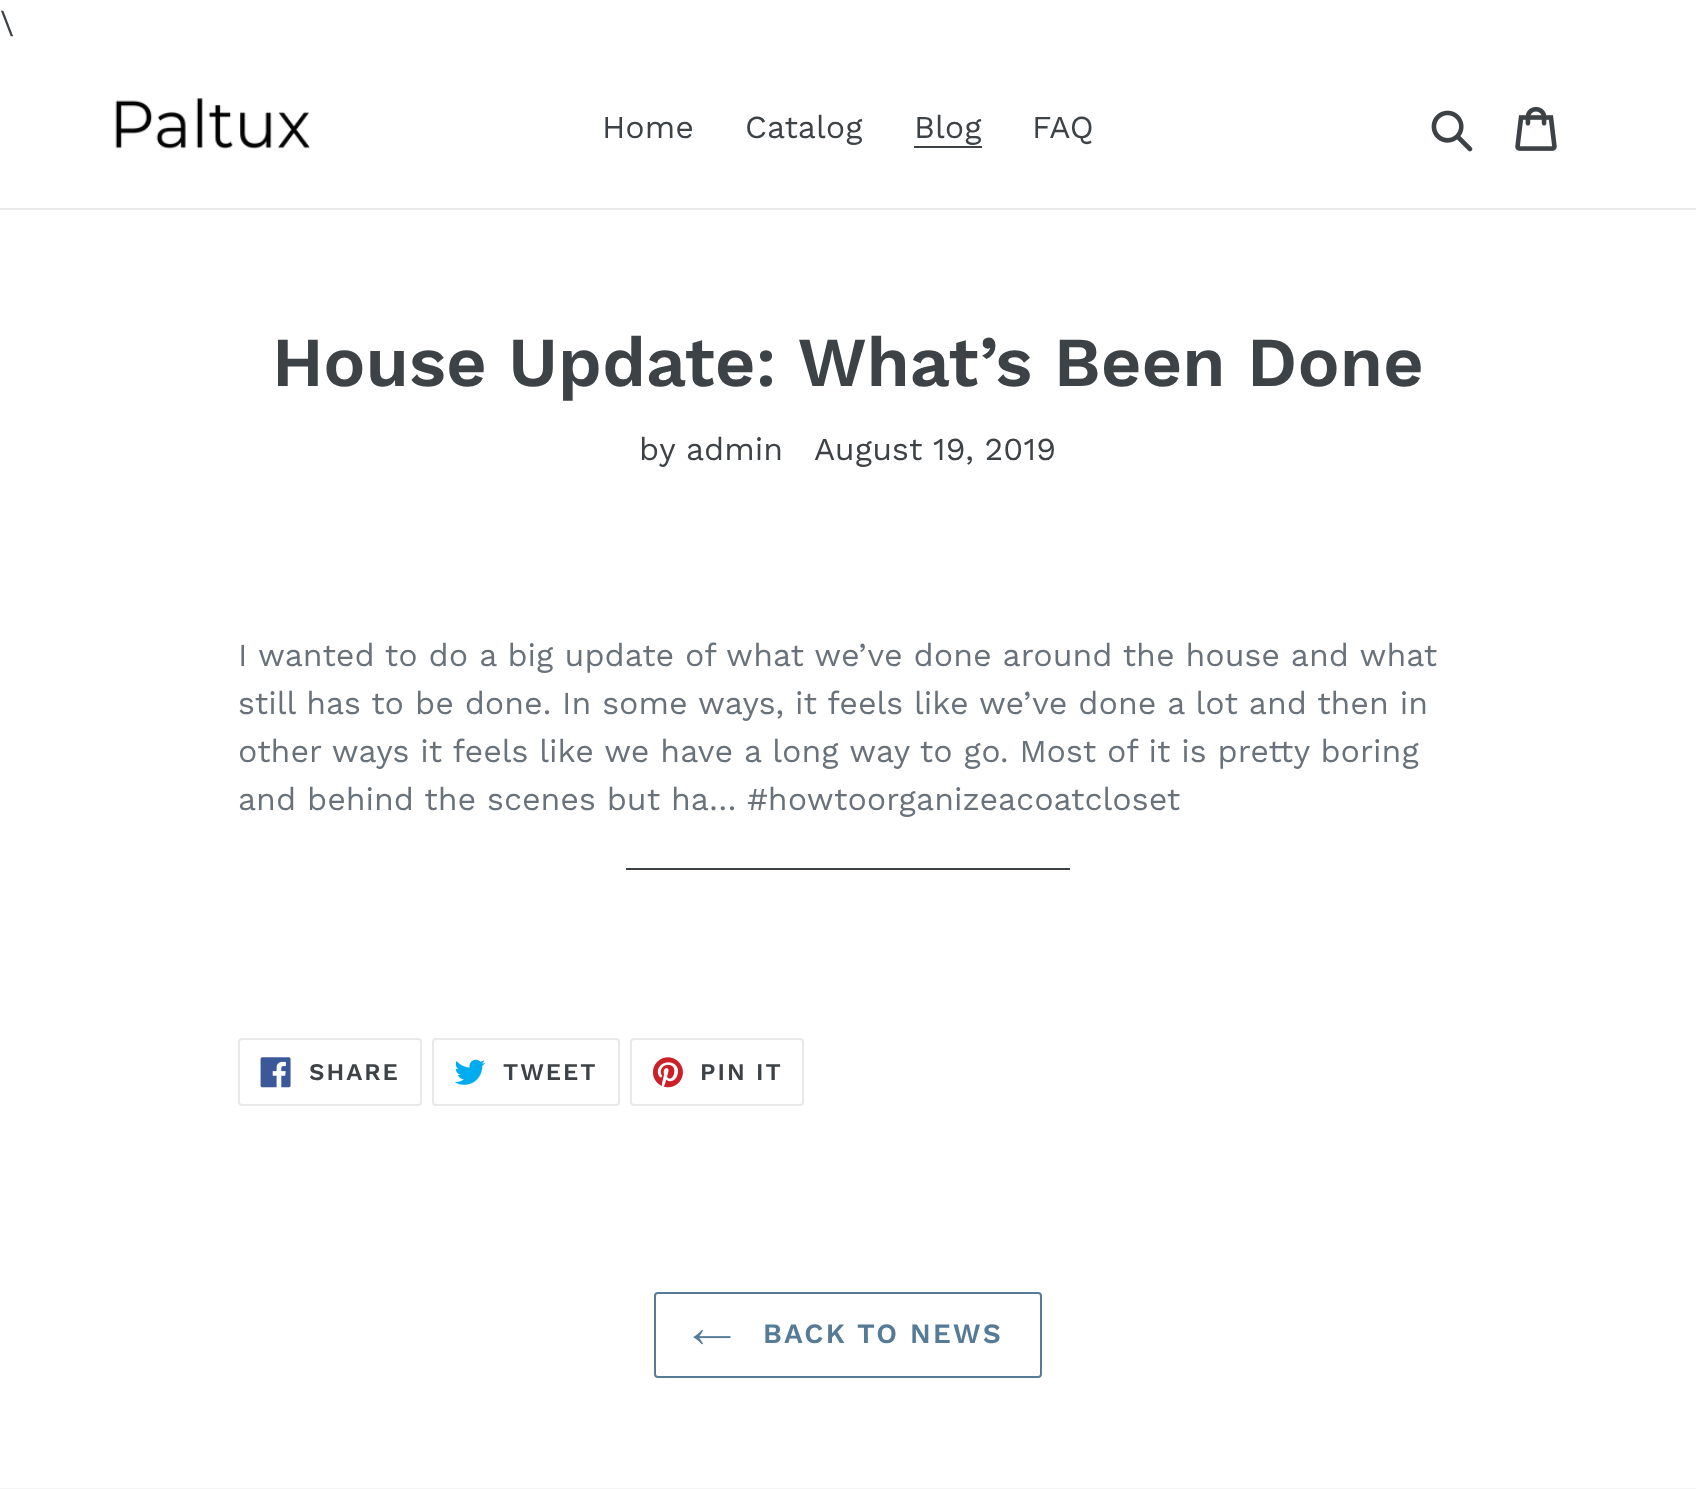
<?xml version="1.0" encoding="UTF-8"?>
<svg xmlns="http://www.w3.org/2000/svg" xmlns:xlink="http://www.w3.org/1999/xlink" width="1696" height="1489">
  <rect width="100%" height="100%" fill="#ffffff" />
  <rect y="208" width="1696" height="2" fill="#e8e9eb" />
  <image x="115" y="98" width="195" height="51" xlink:href="image1.png" />
  <rect x="914" y="146" width="68" height="2" fill="#3d4246" />
  <image x="1431" y="110" width="42" height="42" xlink:href="image2.png" />
  <image x="1515" y="106" width="42" height="45" xlink:href="image3.png" />
  <rect x="626" y="868" width="444" height="2" fill="#3d4246" />
  <rect x="239" y="1039" width="182" height="66" rx="3" fill="none" stroke="#e8e9eb" stroke-width="2" />
  <image x="260" y="1057" width="31" height="31" xlink:href="image4.png" />
  <rect x="433" y="1039" width="186" height="66" rx="3" fill="none" stroke="#e8e9eb" stroke-width="2" />
  <image x="454" y="1059" width="32" height="26" xlink:href="image5.png" />
  <rect x="631" y="1039" width="172" height="66" rx="3" fill="none" stroke="#e8e9eb" stroke-width="2" />
  <image x="652" y="1057" width="31" height="31" xlink:href="image6.png" />
  <rect x="655" y="1293" width="386" height="84" rx="3" fill="none" stroke="#557b97" stroke-width="2" />
  <image x="693" y="1330" width="38" height="15" xlink:href="image7.png" />
  <rect y="1488" width="1696" height="1" fill="#f5f5f5" />
  <text x="0" y="34" style="font-family: Work Sans; font-size: 32px; fill: #3d4246">\</text>
  <text x="602" y="138" style="font-family: Work Sans; font-size: 32px; fill: #3d4246">Home</text>
  <text x="745" y="138" style="font-family: Work Sans; font-size: 32px; fill: #3d4246">Catalog</text>
  <text x="914" y="138" style="font-family: Work Sans; font-size: 32px; fill: #3d4246">Blog</text>
  <text x="1032" y="138" style="font-family: Work Sans; font-size: 32px; fill: #3d4246">FAQ</text>
  <text x="272" y="386" style="font-family: Work Sans; font-size: 70px; font-weight: 600; fill: #3d4246">House Update: What’s Been Done</text>
  <text x="639" y="460" style="font-family: Work Sans; font-size: 32px; fill: #3d4246">by admin</text>
  <text x="814" y="460" style="font-family: Work Sans; font-size: 32px; fill: #3d4246">August 19, 2019</text>
  <text x="238" y="666" style="font-family: Work Sans; font-size: 32px; fill: #69727b">I wanted to do a big update of what we’ve done around the house and what</text>
  <text x="238" y="714" style="font-family: Work Sans; font-size: 32px; fill: #69727b">still has to be done. In some ways, it feels like we’ve done a lot and then in</text>
  <text x="238" y="762" style="font-family: Work Sans; font-size: 32px; fill: #69727b">other ways it feels like we have a long way to go. Most of it is pretty boring</text>
  <text x="238" y="810" style="font-family: Work Sans; font-size: 32px; fill: #69727b">and behind the scenes but ha… #howtoorganizeacoatcloset</text>
  <text x="309" y="1080" style="font-family: Work Sans; font-size: 24px; font-weight: 600; letter-spacing: 2px; fill: #3d4246">SHARE</text>
  <text x="503" y="1080" style="font-family: Work Sans; font-size: 24px; font-weight: 600; letter-spacing: 2px; fill: #3d4246">TWEET</text>
  <text x="700" y="1080" style="font-family: Work Sans; font-size: 24px; font-weight: 600; letter-spacing: 2px; fill: #3d4246">PIN IT</text>
  <text x="763" y="1343" style="font-family: Work Sans; font-size: 28px; font-weight: 600; letter-spacing: 2.25px; fill: #557b97">BACK TO NEWS</text>
</svg>
